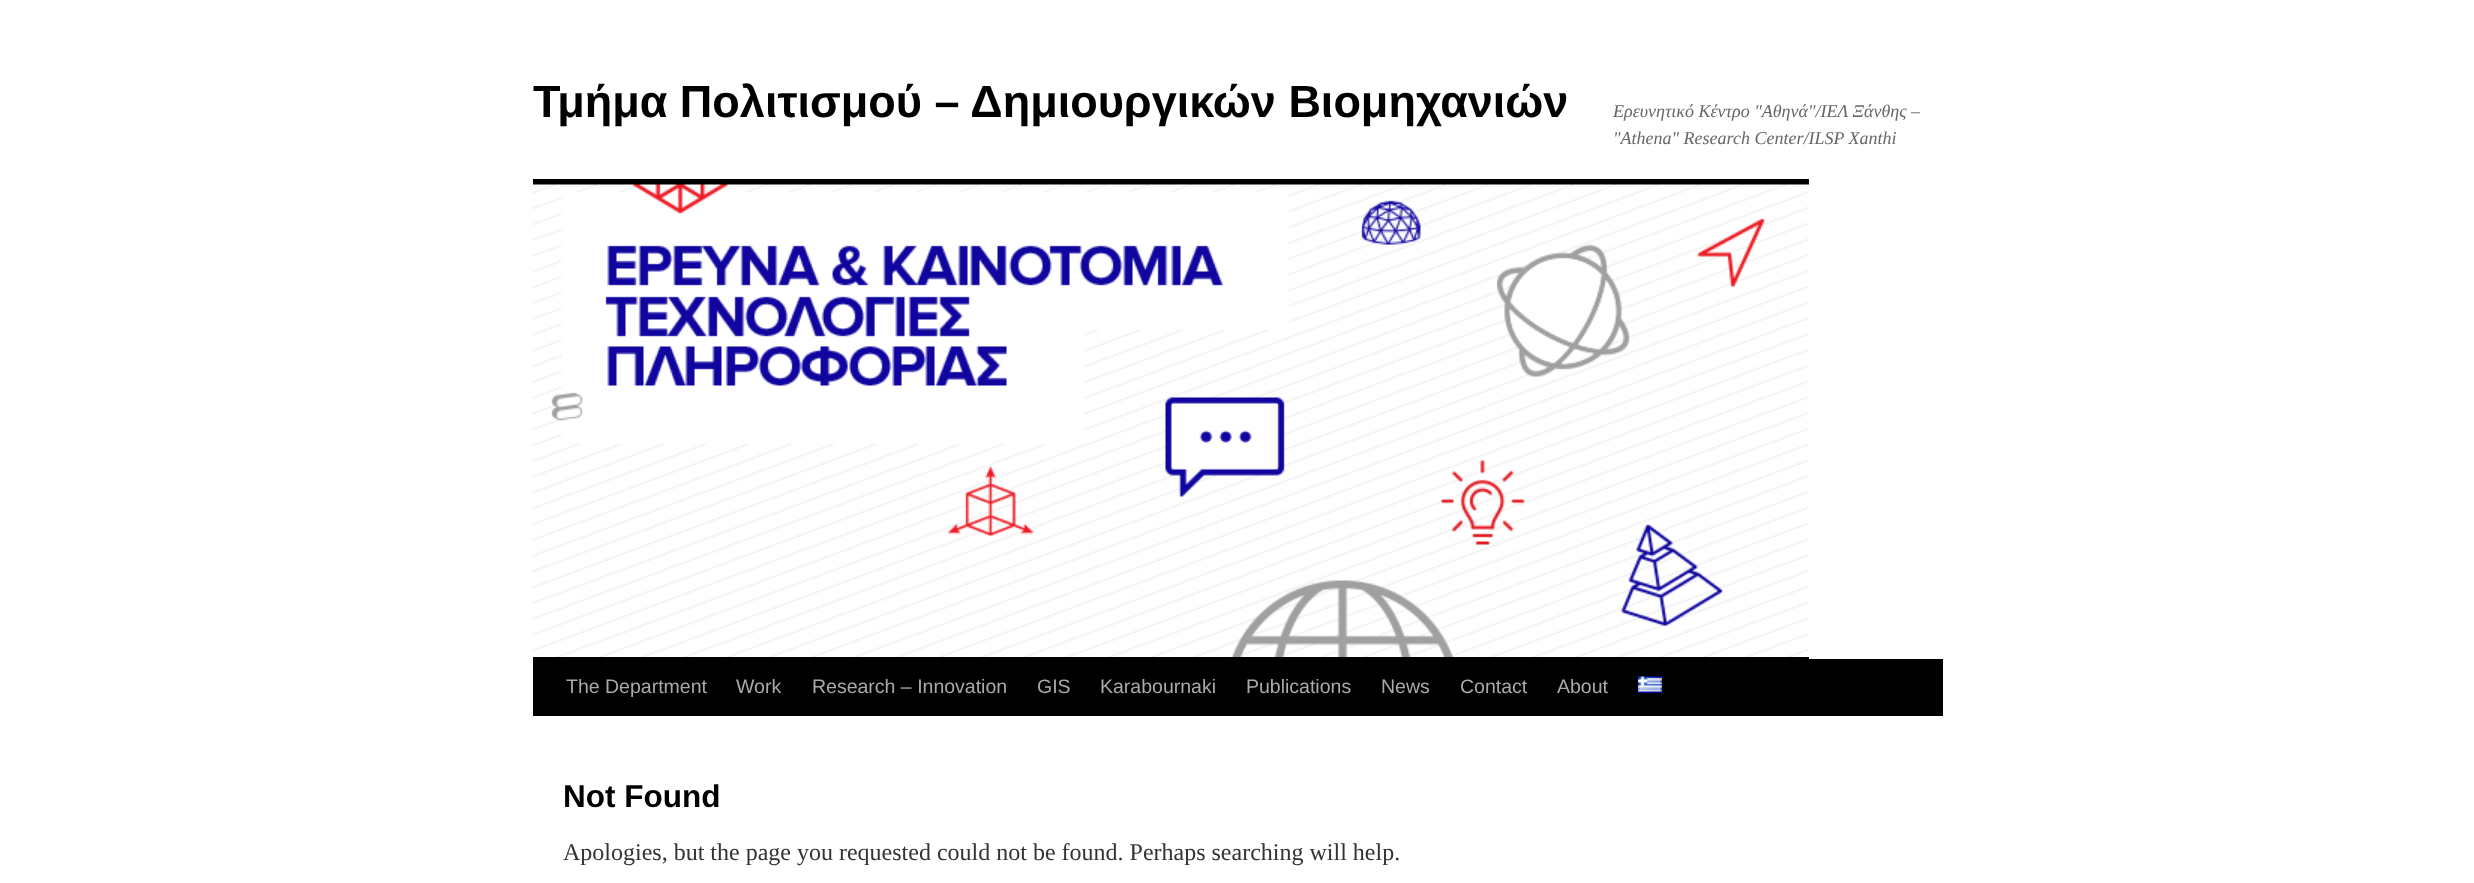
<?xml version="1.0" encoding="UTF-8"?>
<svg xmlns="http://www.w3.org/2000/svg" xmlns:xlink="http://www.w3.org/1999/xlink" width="2474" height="883">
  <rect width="100%" height="100%" fill="#ffffff" />
  <rect x="533" y="179" width="1276" height="6" fill="#000000" />
  <rect x="533" y="657" width="1276" height="2" fill="#000000" />
  <image x="532" y="184" width="1277" height="473" xlink:href="image1.png" />
  <rect x="533" y="659" width="1410" height="57" fill="#000000" />
  <image x="1638" y="676" width="24" height="17" xlink:href="image2.png" />
  <text x="533" y="117" style="font-family: Liberation Sans; font-size: 45px; font-weight: bold; fill: #000000">Τμήμα Πολιτισμού – Δημιουργικών Βιομηχανιών</text>
  <text x="1613" y="117" style="font-family: Liberation Serif; font-size: 18px; font-style: italic; fill: #666666">Ερευνητικό Κέντρο "Αθηνά"/ΙΕΛ Ξάνθης –</text>
  <text x="1613" y="144" style="font-family: Liberation Serif; font-size: 18px; font-style: italic; fill: #666666">"Athena" Research Center/ILSP Xanthi</text>
  <text x="566" y="693" style="font-family: Liberation Sans; font-size: 19.5px; fill: #aaaaaa">The Department</text>
  <text x="736" y="693" style="font-family: Liberation Sans; font-size: 19.5px; fill: #aaaaaa">Work</text>
  <text x="812" y="693" style="font-family: Liberation Sans; font-size: 19.5px; fill: #aaaaaa">Research – Innovation</text>
  <text x="1037" y="693" style="font-family: Liberation Sans; font-size: 19.5px; fill: #aaaaaa">GIS</text>
  <text x="1100" y="693" style="font-family: Liberation Sans; font-size: 19.5px; fill: #aaaaaa">Karabournaki</text>
  <text x="1246" y="693" style="font-family: Liberation Sans; font-size: 19.5px; fill: #aaaaaa">Publications</text>
  <text x="1381" y="693" style="font-family: Liberation Sans; font-size: 19.5px; fill: #aaaaaa">News</text>
  <text x="1460" y="693" style="font-family: Liberation Sans; font-size: 19.5px; fill: #aaaaaa">Contact</text>
  <text x="1557" y="693" style="font-family: Liberation Sans; font-size: 19.5px; fill: #aaaaaa">About</text>
  <text x="563" y="807" style="font-family: Liberation Sans; font-size: 31.5px; font-weight: bold; fill: #000000">Not Found</text>
  <text x="563" y="860" style="font-family: Liberation Serif; font-size: 24px; fill: #333333">Apologies, but the page you requested could not be found. Perhaps searching will help.</text>
</svg>
